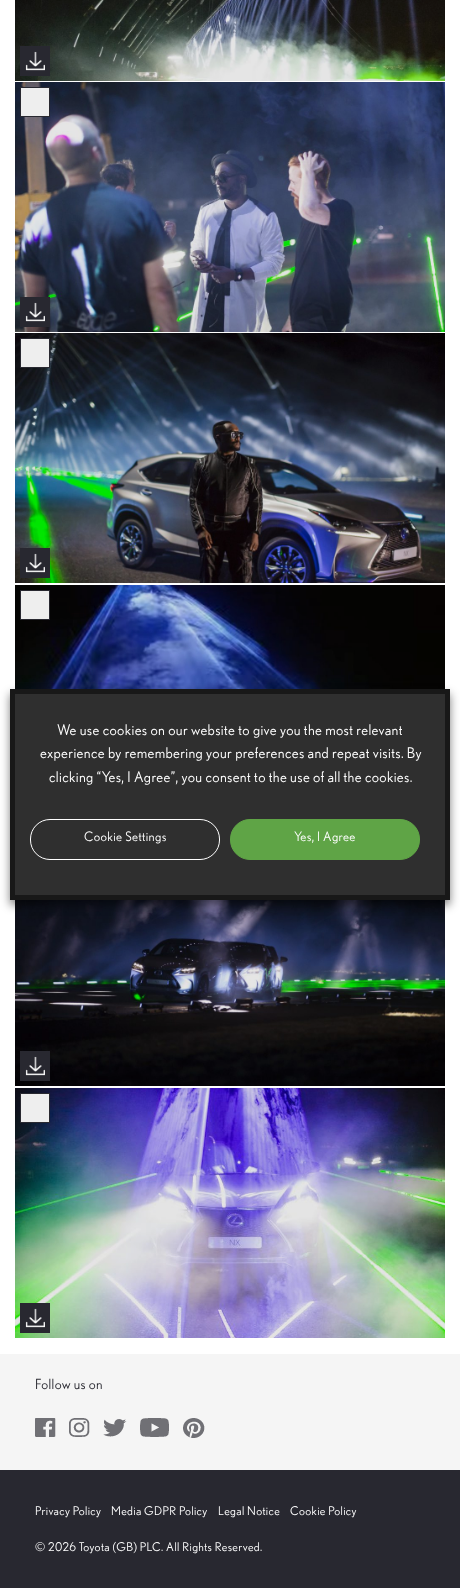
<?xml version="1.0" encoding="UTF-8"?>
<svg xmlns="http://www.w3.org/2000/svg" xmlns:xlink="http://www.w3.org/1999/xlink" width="460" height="1588">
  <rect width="100%" height="100%" fill="#ffffff" />
  <image x="15" y="585" width="430" height="104" xlink:href="image5.png" />
  <image x="15" y="900" width="430" height="186" xlink:href="image6.png" />
  <rect x="10" y="694" width="440" height="211" fill="#000000" fill-opacity="0.5" filter="blur(5px)" />
  <rect x="12.5" y="691.5" width="435" height="206" fill="#2f2f2f" stroke="#181818" stroke-width="5" />
  <rect x="30.5" y="819.5" width="189" height="40" rx="19.5" fill="none" stroke="#ffffff" />
  <rect x="230.5" y="819.5" width="189" height="40" rx="19.5" fill="#5fa446" stroke="#5fa446" />
  <image x="15" y="0" width="430" height="81" xlink:href="image1.png" />
  <rect x="20" y="46" width="30" height="30" fill="#282830" />
  <image x="25" y="51" width="20" height="20" xlink:href="image2.png" />
  <image x="15" y="82" width="430" height="250" xlink:href="image3.png" />
  <rect x="20.5" y="87.5" width="29" height="29" fill="#eeeeee" stroke="#282830" />
  <rect x="20" y="297" width="30" height="30" fill="#282830" />
  <image x="25" y="302" width="20" height="20" xlink:href="image2.png" />
  <image x="15" y="333" width="430" height="250" xlink:href="image4.png" />
  <rect x="20.5" y="338.5" width="29" height="29" fill="#eeeeee" stroke="#282830" />
  <rect x="20" y="548" width="30" height="30" fill="#282830" />
  <image x="25" y="553" width="20" height="20" xlink:href="image2.png" />
  <rect x="20.5" y="590.5" width="29" height="29" fill="#eeeeee" stroke="#282830" />
  <rect x="20" y="1051" width="30" height="30" fill="#282830" />
  <image x="25" y="1056" width="20" height="20" xlink:href="image2.png" />
  <image x="15" y="1088" width="430" height="250" xlink:href="image7.png" />
  <rect x="20.5" y="1093.5" width="29" height="29" fill="#eeeeee" stroke="#282830" />
  <rect x="20" y="1303" width="30" height="30" fill="#282830" />
  <image x="25" y="1308" width="20" height="20" xlink:href="image2.png" />
  <rect y="1354" width="460" height="116" fill="#f5f5f5" />
  <image x="35" y="1418" width="21" height="19" xlink:href="image8.png" />
  <image x="69" y="1418" width="21" height="19" xlink:href="image9.png" />
  <image x="103" y="1419" width="24" height="18" xlink:href="image10.png" />
  <image x="140" y="1418" width="29" height="19" xlink:href="image11.png" />
  <image x="183" y="1418" width="22" height="20" xlink:href="image12.png" />
  <rect y="1470" width="460" height="118" fill="#282830" />
  <text x="57" y="735" style="font-family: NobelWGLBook; font-size: 14.7px; letter-spacing: 0.35px; fill: #ffffff">We use cookies on our website to give you the most relevant</text>
  <text x="40" y="758" style="font-family: NobelWGLBook; font-size: 14.7px; letter-spacing: 0.35px; fill: #ffffff">experience by remembering your preferences and repeat visits. By</text>
  <text x="49" y="782" style="font-family: NobelWGLBook; font-size: 14.7px; letter-spacing: 0.35px; fill: #ffffff">clicking “Yes, I Agree”, you consent to the use of all the cookies.</text>
  <text x="84" y="841" style="font-family: NobelWGLBook; font-size: 13px; letter-spacing: 0.35px; fill: #ffffff">Cookie Settings</text>
  <text x="294" y="841" style="font-family: NobelWGLBook; font-size: 13px; letter-spacing: 0.35px; fill: #ffffff">Yes, I Agree</text>
  <text x="35" y="1389" style="font-family: NobelWGLBook; font-size: 14px; letter-spacing: 0.35px; fill: #282830">Follow us on</text>
  <text x="35" y="1515" style="font-family: NobelWGLBook; font-size: 12px; letter-spacing: 0.35px; fill: #ffffff">Privacy Policy</text>
  <text x="111" y="1515" style="font-family: NobelWGLBook; font-size: 12px; letter-spacing: 0.35px; fill: #ffffff">Media GDPR Policy</text>
  <text x="218" y="1515" style="font-family: NobelWGLBook; font-size: 12px; letter-spacing: 0.35px; fill: #ffffff">Legal Notice</text>
  <text x="290" y="1515" style="font-family: NobelWGLBook; font-size: 12px; letter-spacing: 0.35px; fill: #ffffff">Cookie Policy</text>
  <text x="35" y="1551" style="font-family: NobelWGLBook; font-size: 12px; letter-spacing: 0.35px; fill: #ffffff">© 2026 Toyota (GB) PLC. All Rights Reserved.</text>
</svg>
